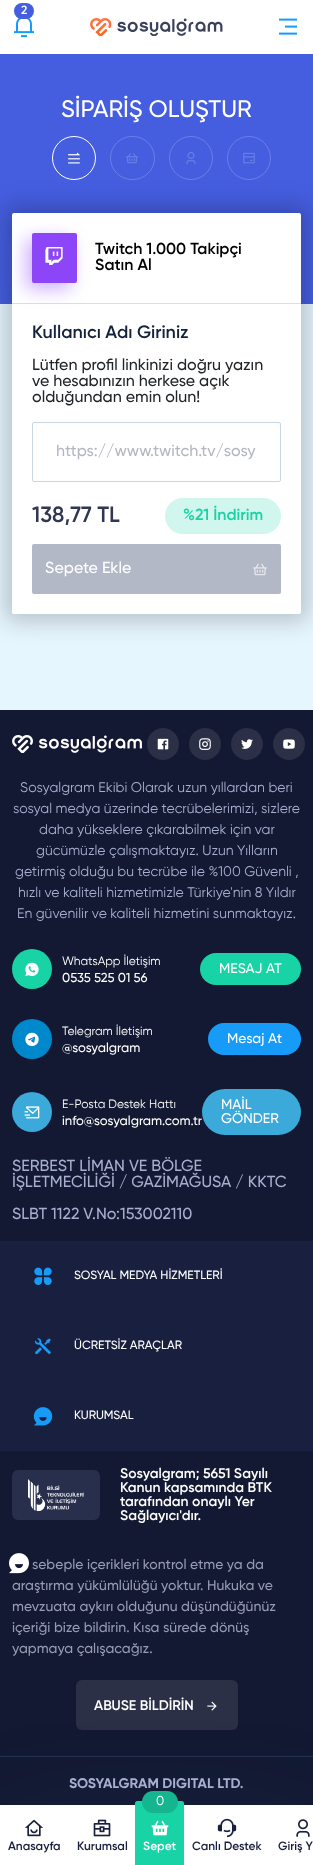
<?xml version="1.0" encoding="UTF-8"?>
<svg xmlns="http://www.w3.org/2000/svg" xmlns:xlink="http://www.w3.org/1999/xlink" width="313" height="1865">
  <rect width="100%" height="100%" fill="#e6f6ff" />
  <rect width="313" height="54" fill="#ffffff" />
  <image x="14" y="18" width="20" height="20" xlink:href="image1.png" />
  <rect x="14" y="3" width="20" height="16" rx="8" fill="#455ee0" />
  <image x="90" y="18" width="133" height="18" xlink:href="image2.png" />
  <image x="279" y="18" width="18" height="17" xlink:href="image3.png" />
  <rect y="54" width="313" height="250" fill="#455ee0" />
  <circle cx="74" cy="158" r="21.5" fill="none" stroke="#ffffff" />
  <image x="68" y="152" width="12" height="12" xlink:href="image4.png" />
  <rect x="110.5" y="136.5" width="44" height="43" rx="21.5" fill="none" stroke="#6a7ee6" />
  <image x="126" y="153" width="12" height="11" xlink:href="image5.png" />
  <circle cx="191" cy="158" r="21.5" fill="none" stroke="#6a7ee6" />
  <image x="186" y="152" width="10" height="13" xlink:href="image6.png" />
  <circle cx="249" cy="158" r="21.5" fill="none" stroke="#6a7ee6" />
  <image x="243" y="152" width="12" height="12" xlink:href="image7.png" />
  <rect x="4" y="205" width="305" height="417" rx="10" fill="#000000" fill-opacity="0.2" filter="blur(11px)" />
  <rect x="12" y="213" width="289" height="401" rx="2" fill="#ffffff" />
  <rect x="12" y="303" width="289" height="1" fill="#d3e1ea" />
  <rect x="26" y="239" width="45" height="50" rx="2" fill="#8d45f8" fill-opacity="0.43" filter="blur(9px)" />
  <rect x="32" y="233" width="45" height="50" rx="2" fill="#8d45f8" />
  <image x="45" y="247" width="18" height="18" xlink:href="image8.png" />
  <rect x="32.5" y="422.5" width="248" height="59" rx="1.5" fill="none" stroke="#c7d7e2" />
  <rect x="165" y="498" width="116" height="36" rx="18" fill="#d1f6ed" />
  <rect x="32" y="544" width="249" height="50" rx="2" fill="#b3b8c6" />
  <image x="253" y="563" width="14" height="13" xlink:href="image9.png" />
  <rect y="1241" width="313" height="210" fill="#19203f" />
  <rect y="710" width="313" height="531" fill="#131932" />
  <image x="12" y="735" width="130" height="18" xlink:href="image10.png" />
  <circle cx="163" cy="744" r="16" fill="#2b3047" />
  <image x="157" y="738" width="12" height="12" xlink:href="image11.png" />
  <circle cx="205" cy="744" r="16" fill="#2b3047" />
  <image x="199" y="738" width="12" height="12" xlink:href="image12.png" />
  <circle cx="247" cy="744" r="16" fill="#2b3047" />
  <image x="241" y="739" width="12" height="10" xlink:href="image13.png" />
  <circle cx="289" cy="744" r="16" fill="#2b3047" />
  <image x="283" y="739" width="12" height="10" xlink:href="image14.png" />
  <circle cx="32" cy="969" r="20" fill="#18d3a6" />
  <image x="25" y="962" width="14" height="15" xlink:href="image15.png" />
  <rect x="200" y="953" width="101" height="32" rx="16" fill="#18d3a6" />
  <circle cx="32" cy="1039" r="20" fill="#0088cc" />
  <image x="25" y="1032" width="14" height="15" xlink:href="image16.png" />
  <rect x="208" y="1023" width="93" height="32" rx="16" fill="#179bf9" />
  <circle cx="32" cy="1112" r="20" fill="#3ba9da" />
  <image x="24" y="1106" width="16" height="13" xlink:href="image17.png" />
  <rect x="202" y="1089" width="99" height="46" rx="23" fill="#3ba9da" />
  <image x="34" y="1267" width="18" height="18" xlink:href="image18.png" />
  <image x="34" y="1338" width="17" height="17" xlink:href="image19.png" />
  <image x="33" y="1407" width="20" height="19" xlink:href="image20.png" />
  <rect y="1451" width="313" height="305" fill="#131932" />
  <rect y="1756" width="313" height="1" fill="#272f4e" />
  <rect x="12" y="1470" width="88" height="50" rx="6" fill="#272f4d" />
  <image x="28" y="1479" width="56" height="32" xlink:href="image21.png" />
  <rect x="76" y="1680" width="162" height="50" rx="6" fill="#2b3047" />
  <image x="207" y="1701" width="10" height="10" xlink:href="image22.png" />
  <image x="9" y="1553" width="20" height="21" xlink:href="image23.png" />
  <rect y="1757" width="313" height="48" fill="#131932" />
  <rect y="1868" width="313" height="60" fill="#2855ac" fill-opacity="0.36" filter="blur(66.5px)" />
  <rect y="1805" width="313" height="60" fill="#ffffff" />
  <image x="25" y="1819" width="18" height="18" xlink:href="image24.png" />
  <image x="93" y="1819" width="18" height="18" xlink:href="image25.png" />
  <rect x="135" y="1805" width="49" height="60" fill="#18d3a6" />
  <path d="M 137 1801 h 45 c 1 0 2 1 2 2 v 2 h -49 v -2 c 0 -1 1 -2 2 -2 z" fill="#18d3a6" />
  <rect x="142" y="1791" width="36" height="22" rx="11" fill="#15b68f" />
  <image x="151" y="1820" width="18" height="16" xlink:href="image26.png" />
  <image x="217" y="1818" width="20" height="20" xlink:href="image27.png" />
  <image x="296" y="1819" width="14" height="18" xlink:href="image28.png" />
  <text x="21" y="14" style="font-family: Gilroy; font-size: 12px; font-weight: 600; fill: #ffffff">2</text>
  <text x="61" y="117" style="font-family: Gilroy; font-size: 24px; font-weight: 500; fill: #ffffff">SİPARİŞ OLUŞTUR</text>
  <text x="95" y="254" style="font-family: Gilroy; font-size: 16px; font-weight: 600; fill: #000000">Twitch 1.000 Takipçi</text>
  <text x="95" y="270" style="font-family: Gilroy; font-size: 16px; font-weight: 600; fill: #000000">Satın Al</text>
  <text x="32" y="338" style="font-family: Gilroy; font-size: 18px; font-weight: 600; fill: #13223a">Kullanıcı Adı Giriniz</text>
  <text x="32" y="370" style="font-family: Gilroy; font-size: 16px; font-weight: 500; fill: #212529">Lütfen profil linkinizi doğru yazın</text>
  <text x="32" y="386" style="font-family: Gilroy; font-size: 16px; font-weight: 500; fill: #212529">ve hesabınızın herkese açık</text>
  <text x="32" y="402" style="font-family: Gilroy; font-size: 16px; font-weight: 500; fill: #212529">olduğundan emin olun!</text>
  <text x="56" y="456" style="font-family: Gilroy; font-size: 16px; font-weight: 500; fill: #b4b7c1">https://www.twitch.tv/sosy</text>
  <text x="32" y="522" style="font-family: Gilroy; font-size: 22px; font-weight: 600; fill: #303754">138,77 TL</text>
  <text x="183" y="520" style="font-family: Gilroy; font-size: 16px; font-weight: 600; fill: #18d3a6">%21 İndirim</text>
  <text x="45" y="573" style="font-family: Gilroy; font-size: 16px; font-weight: 500; fill: #ffffff">Sepete Ekle</text>
  <text x="20" y="792" style="font-family: Gilroy; font-size: 14px; fill: #a7afd0">Sosyalgram Ekibi Olarak uzun yıllardan beri</text>
  <text x="13" y="813" style="font-family: Gilroy; font-size: 14px; fill: #a7afd0">sosyal medya üzerinde tecrübelerimizi, sizlere</text>
  <text x="39" y="834" style="font-family: Gilroy; font-size: 14px; fill: #a7afd0">daha yükseklere çıkarabilmek için var</text>
  <text x="36" y="855" style="font-family: Gilroy; font-size: 14px; fill: #a7afd0">gücümüzle çalışmaktayız. Uzun Yılların</text>
  <text x="15" y="876" style="font-family: Gilroy; font-size: 14px; fill: #a7afd0">getirmiş olduğu bu tecrübe ile %100 Güvenli ,</text>
  <text x="18" y="897" style="font-family: Gilroy; font-size: 14px; fill: #a7afd0">hızlı ve kaliteli hizmetimizle Türkiye'nin 8 Yıldır</text>
  <text x="17" y="918" style="font-family: Gilroy; font-size: 14px; fill: #a7afd0">En güvenilir ve kaliteli hizmetini sunmaktayız.</text>
  <text x="62" y="965" style="font-family: Gilroy; font-size: 12px; fill: #ffffff">WhatsApp İletişim</text>
  <text x="62" y="982" style="font-family: Gilroy; font-size: 13px; font-weight: 500; fill: #ffffff">0535 525 01 56</text>
  <text x="219" y="973" style="font-family: Gilroy; font-size: 14px; font-weight: 500; fill: #ffffff">MESAJ AT</text>
  <text x="62" y="1035" style="font-family: Gilroy; font-size: 12px; fill: #ffffff">Telegram İletişim</text>
  <text x="62" y="1052" style="font-family: Gilroy; font-size: 13px; font-weight: 500; fill: #ffffff">@sosyalgram</text>
  <text x="227" y="1043" style="font-family: Gilroy; font-size: 14px; font-weight: 500; fill: #ffffff">Mesaj At</text>
  <text x="62" y="1108" style="font-family: Gilroy; font-size: 12px; fill: #ffffff">E-Posta Destek Hattı</text>
  <text x="62" y="1125" style="font-family: Gilroy; font-size: 13px; font-weight: 500; fill: #ffffff">info@sosyalgram.com.tr</text>
  <text x="221" y="1109" style="font-family: Gilroy; font-size: 14px; font-weight: 500; fill: #ffffff">MAİL</text>
  <text x="221" y="1123" style="font-family: Gilroy; font-size: 14px; font-weight: 500; fill: #ffffff">GÖNDER</text>
  <text x="12" y="1171" style="font-family: Gilroy; font-size: 16px; font-weight: 500; fill: #a7afd0">SERBEST LİMAN VE BÖLGE</text>
  <text x="12" y="1187" style="font-family: Gilroy; font-size: 16px; font-weight: 500; fill: #a7afd0">İŞLETMECİLİĞİ / GAZİMAĞUSA / KKTC</text>
  <text x="12" y="1219" style="font-family: Gilroy; font-size: 16px; font-weight: 500; fill: #a7afd0">SLBT 1122 V.No:153002110</text>
  <text x="74" y="1279" style="font-family: Gilroy; font-size: 12px; font-weight: 500; fill: #ffffff">SOSYAL MEDYA HİZMETLERİ</text>
  <text x="74" y="1349" style="font-family: Gilroy; font-size: 12px; font-weight: 500; fill: #ffffff">ÜCRETSİZ ARAÇLAR</text>
  <text x="74" y="1419" style="font-family: Gilroy; font-size: 12px; font-weight: 500; fill: #ffffff">KURUMSAL</text>
  <text x="120" y="1478" style="font-family: Gilroy; font-size: 14px; font-weight: 600; fill: #ffffff">Sosyalgram; 5651 Sayılı</text>
  <text x="120" y="1492" style="font-family: Gilroy; font-size: 14px; font-weight: 600; fill: #ffffff">Kanun kapsamında BTK</text>
  <text x="120" y="1506" style="font-family: Gilroy; font-size: 14px; font-weight: 600; fill: #ffffff">tarafından onaylı Yer</text>
  <text x="120" y="1520" style="font-family: Gilroy; font-size: 14px; font-weight: 600; fill: #ffffff">Sağlayıcı'dır.</text>
  <text x="32" y="1569" style="font-family: Gilroy; font-size: 14px; font-weight: 500; fill: #969bb2">sebeple içerikleri kontrol etme ya da</text>
  <text x="12" y="1590" style="font-family: Gilroy; font-size: 14px; font-weight: 500; fill: #969bb2">araştırma yükümlülüğü yoktur. Hukuka ve</text>
  <text x="12" y="1611" style="font-family: Gilroy; font-size: 14px; font-weight: 500; fill: #969bb2">mevzuata aykırı olduğunu düşündüğünüz</text>
  <text x="12" y="1632" style="font-family: Gilroy; font-size: 14px; font-weight: 500; fill: #969bb2">içeriği bize bildirin. Kısa sürede dönüş</text>
  <text x="12" y="1653" style="font-family: Gilroy; font-size: 14px; font-weight: 500; fill: #969bb2">yapmaya çalışacağız.</text>
  <text x="94" y="1710" style="font-family: Gilroy; font-size: 14px; font-weight: 600; fill: #ffffff">ABUSE BİLDİRİN</text>
  <text x="69" y="1788" style="font-family: Gilroy; font-size: 14px; font-weight: bold; fill: #a7afd0">SOSYALGRAM DIGITAL LTD.</text>
  <text x="8" y="1850" style="font-family: Gilroy; font-size: 12px; font-weight: 600; fill: #19203f">Anasayfa</text>
  <text x="77" y="1850" style="font-family: Gilroy; font-size: 12px; font-weight: 600; fill: #19203f">Kurumsal</text>
  <text x="156" y="1805" style="font-family: Gilroy; font-size: 13px; fill: #ffffff">0</text>
  <text x="143" y="1850" style="font-family: Gilroy; font-size: 12px; font-weight: 600; fill: #ffffff">Sepet</text>
  <text x="192" y="1850" style="font-family: Gilroy; font-size: 12px; font-weight: 600; fill: #19203f">Canlı Destek</text>
  <text x="278" y="1850" style="font-family: Gilroy; font-size: 12px; font-weight: 600; fill: #19203f">Giriş Y</text>
</svg>
